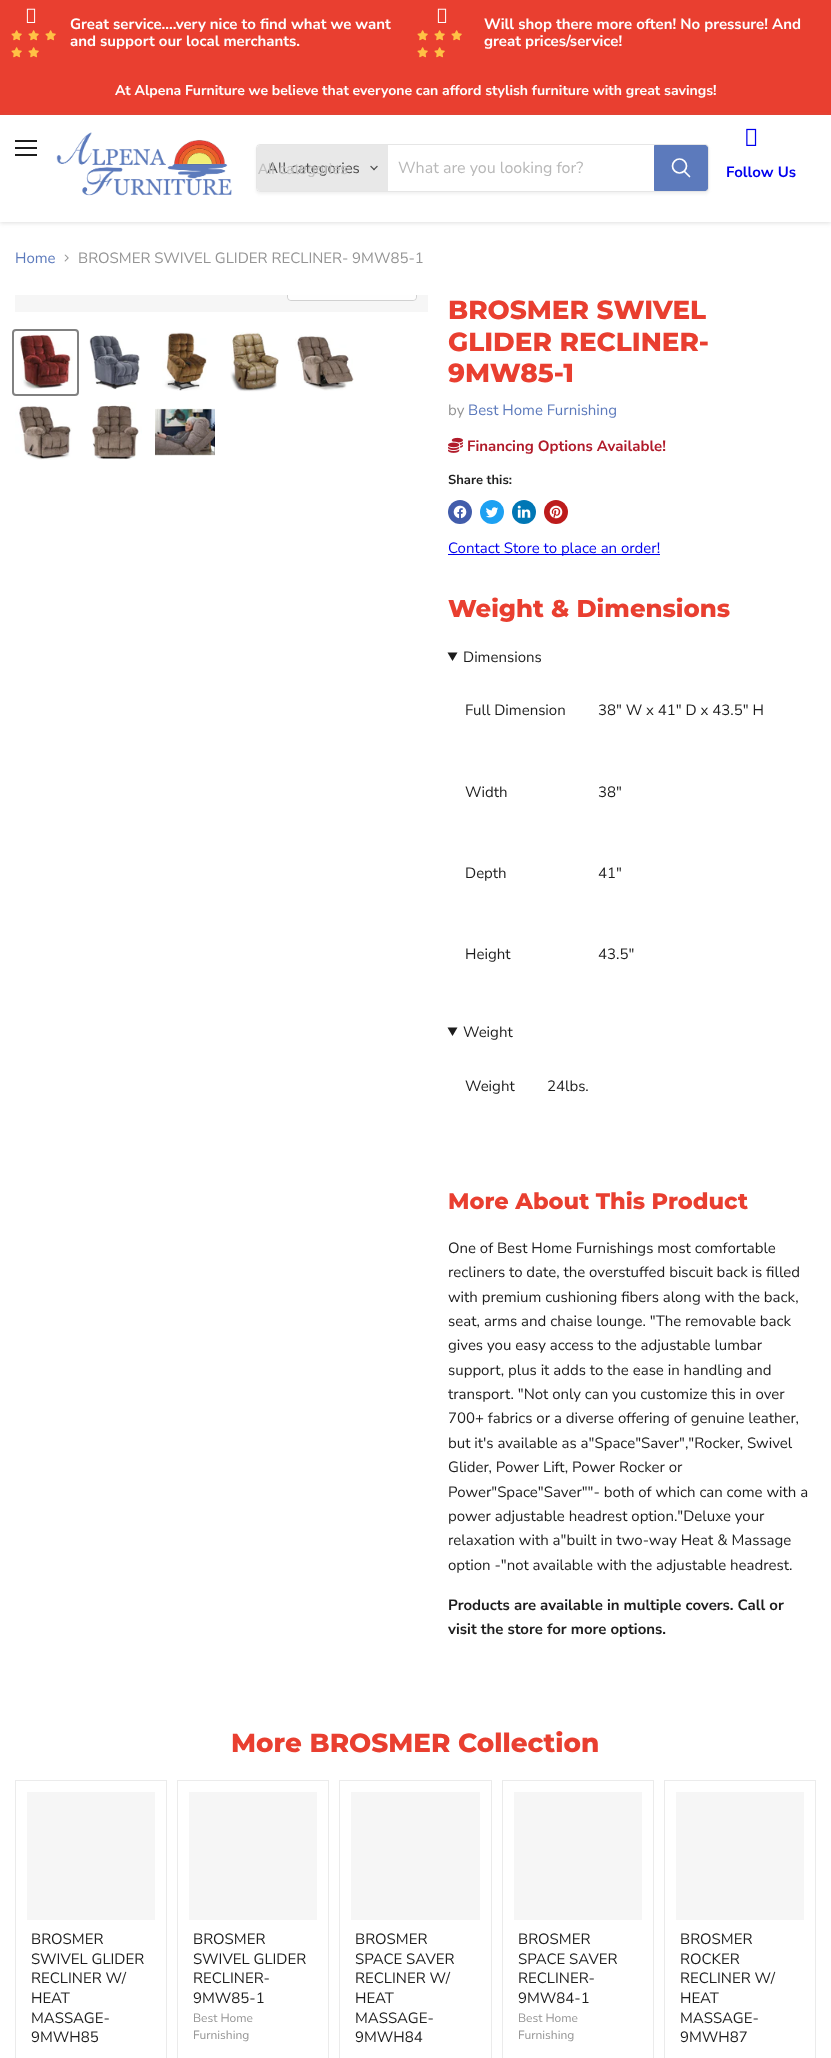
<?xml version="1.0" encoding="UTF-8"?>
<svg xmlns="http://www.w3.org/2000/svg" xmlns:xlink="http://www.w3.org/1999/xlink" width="831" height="2058">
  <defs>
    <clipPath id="clip1"><path d="M 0 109 h 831 v 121 h -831 z m 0 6 h 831 v 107 h -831 z" clip-rule="evenodd" /></clipPath>
    <clipPath id="clip2"><path d="M 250 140 h 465 v 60 h -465 z m 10 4 h 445 c 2 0 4 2 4 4 v 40 c 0 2 -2 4 -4 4 h -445 c -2 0 -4 -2 -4 -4 v -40 c 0 -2 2 -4 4 -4 z" clip-rule="evenodd" /></clipPath>
    <clipPath id="clip3"><rect x="15" y="295" width="413" height="17" /></clipPath>
  </defs>
  <rect width="100%" height="100%" fill="#ffffff" />
  <rect width="831" height="115" fill="#e93f30" />
  <image x="26" y="8" width="10" height="15" xlink:href="image1.png" />
  <image x="11" y="30" width="11" height="11" xlink:href="image2.png" />
  <image x="28" y="30" width="11" height="11" xlink:href="image2.png" />
  <image x="45" y="30" width="11" height="11" xlink:href="image2.png" />
  <image x="11" y="47" width="11" height="11" xlink:href="image2.png" />
  <image x="28" y="47" width="11" height="11" xlink:href="image2.png" />
  <image x="437" y="8" width="10" height="15" xlink:href="image1.png" />
  <image x="417" y="30" width="11" height="11" xlink:href="image2.png" />
  <image x="434" y="30" width="11" height="11" xlink:href="image2.png" />
  <image x="451" y="30" width="11" height="11" xlink:href="image2.png" />
  <image x="417" y="47" width="11" height="11" xlink:href="image2.png" />
  <image x="434" y="47" width="11" height="11" xlink:href="image2.png" />
  <g clip-path="url(#clip1)">
    <rect y="116" width="831" height="107" fill="#808080" fill-opacity="0.25" filter="blur(2px)" />
  </g>
  <rect x="15" y="140" width="22" height="2" fill="#1d1d1d" />
  <rect x="15" y="147" width="22" height="2" fill="#1d1d1d" />
  <rect x="15" y="154" width="22" height="2" fill="#1d1d1d" />
  <image x="56" y="132" width="176" height="64" xlink:href="image3.png" />
  <g clip-path="url(#clip2)">
    <rect x="256" y="146" width="453" height="48" rx="4" fill="#808080" fill-opacity="0.11" filter="blur(1.5px)" />
  </g>
  <rect x="256.5" y="144.5" width="452" height="47" rx="3.5" fill="none" stroke="#808080" stroke-opacity="0.2" />
  <path d="M 260 145 h 128 v 46 h -128 c -1.5 0 -3 -1.5 -3 -3 v -40 c 0 -1.5 1.5 -3 3 -3 z" fill="#e8e8e8" />
  <image x="370" y="165" width="8" height="6" xlink:href="image4.png" />
  <path d="M 654.5 145.5 h 50.5 c 1.5 0 2.5 1 2.5 2.5 v 40 c 0 1.5 -1 2.5 -2.5 2.5 h -50.5 z" fill="#5c7abc" stroke="#5c7abc" />
  <path d="M 689.5 176.5 l -5 -5" fill="none" stroke="#ffffff" stroke-width="1.7" stroke-linecap="round" />
  <circle cx="679.5" cy="166" r="7" fill="none" stroke="#ffffff" stroke-width="1.7" />
  <image x="746" y="128" width="11" height="18" xlink:href="image5.png" />
  <image x="64" y="254" width="5" height="8" xlink:href="image6.png" />
  <rect x="15" y="295" width="413" height="17" fill="#f6f6f6" />
  <g clip-path="url(#clip3)">
    <rect x="287.5" y="272.5" width="129" height="28" rx="3.5" fill="none" stroke="#d1d1d1" />
  </g>
  <path d="M 288 295 h 128 v 2 c 0 1.5 -1.5 3 -3 3 h -122 c -1.5 0 -3 -1.5 -3 -3 z" fill="#ffffff" fill-opacity="0.9" />
  <rect x="13" y="330" width="65" height="65" rx="3" fill="none" stroke="#818181" stroke-width="2" />
  <image x="19" y="332" width="54" height="57" xlink:href="image7.png" />
  <image x="89" y="335" width="51" height="55" xlink:href="image8.png" />
  <image x="162" y="332" width="45" height="59" xlink:href="image9.png" />
  <image x="230" y="332" width="49" height="60" xlink:href="image10.png" />
  <image x="295" y="335" width="59" height="56" xlink:href="image11.png" />
  <image x="15" y="405" width="57" height="55" xlink:href="image12.png" />
  <image x="92" y="402" width="50" height="58" xlink:href="image13.png" />
  <image x="155" y="408" width="60" height="48" xlink:href="image14.png" />
  <image x="448" y="437" width="15" height="16" xlink:href="image15.png" />
  <circle cx="460" cy="512" r="12" fill="#425dab" />
  <image x="453" y="505" width="14" height="14" xlink:href="image16.png" />
  <circle cx="492" cy="512" r="12" fill="#1da1f2" />
  <image x="486" y="507" width="13" height="11" xlink:href="image17.png" />
  <circle cx="524" cy="512" r="12" fill="#0077b5" />
  <image x="517" y="505" width="14" height="13" xlink:href="image18.png" />
  <circle cx="556" cy="512" r="12" fill="#bd1c1c" />
  <image x="549" y="505" width="14" height="14" xlink:href="image19.png" />
  <rect x="448" y="554" width="212" height="1" fill="#0000ee" />
  <path d="M 447.5 652.5 h 10 l -5 8.5 z" fill="#1d1d1d" />
  <path d="M 447.5 1027.5 h 10 l -5 8.5 z" fill="#1d1d1d" />
  <rect x="15.5" y="1780.5" width="151" height="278" fill="none" stroke="#ebebeb" />
  <rect x="27" y="1792" width="128" height="128" fill="#f6f6f6" />
  <rect x="177.5" y="1780.5" width="151" height="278" fill="none" stroke="#ebebeb" />
  <rect x="189" y="1792" width="128" height="128" fill="#f6f6f6" />
  <rect x="339.5" y="1780.5" width="152" height="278" fill="none" stroke="#ebebeb" />
  <rect x="351" y="1792" width="129" height="128" fill="#f6f6f6" />
  <rect x="502.5" y="1780.5" width="151" height="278" fill="none" stroke="#ebebeb" />
  <rect x="514" y="1792" width="128" height="128" fill="#f6f6f6" />
  <rect x="664.5" y="1780.5" width="151" height="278" fill="none" stroke="#ebebeb" />
  <rect x="676" y="1792" width="128" height="128" fill="#f6f6f6" />
  <text x="70" y="29" style="font-family: Nunito Sans; font-size: 15px; font-weight: bold; fill: #ffffff">Great service....very nice to find what we want</text>
  <text x="70" y="46" style="font-family: Nunito Sans; font-size: 15px; font-weight: bold; fill: #ffffff">and support our local merchants.</text>
  <text x="484" y="29" style="font-family: Nunito Sans; font-size: 15px; font-weight: bold; fill: #ffffff">Will shop there more often! No pressure! And</text>
  <text x="484" y="46" style="font-family: Nunito Sans; font-size: 15px; font-weight: bold; fill: #ffffff">great prices/service!</text>
  <text x="115" y="95" style="font-family: Nunito Sans; font-size: 14.05px; font-weight: bold; fill: #ffffff">At Alpena Furniture we believe that everyone can afford stylish furniture with great savings!</text>
  <text x="267" y="173" style="font-family: Nunito Sans; font-size: 15px; fill: #4d4d4d">All categories</text>
  <text x="258" y="174" style="font-family: Liberation Sans; font-size: 15px; fill: #c1c1c1">All categories</text>
  <text x="398" y="173" style="font-family: Nunito Sans; font-size: 16px; fill: #b8b8b8">What are you looking for?</text>
  <text x="726" y="177" style="font-family: Nunito Sans; font-size: 15px; font-weight: bold; fill: #0000ee">Follow Us</text>
  <text x="15" y="263" style="font-family: Nunito Sans; font-size: 15px; fill: #5c7abc">Home</text>
  <text x="78" y="263" style="font-family: Nunito Sans; font-size: 15px; fill: #949494">BROSMER SWIVEL GLIDER RECLINER- 9MW85-1</text>
  <text x="448" y="319" style="font-family: Montserrat; font-size: 26.25px; font-weight: 800; fill: #e93f30">BROSMER SWIVEL</text>
  <text x="448" y="351" style="font-family: Montserrat; font-size: 26.25px; font-weight: 800; fill: #e93f30">GLIDER RECLINER-</text>
  <text x="448" y="382" style="font-family: Montserrat; font-size: 26.25px; font-weight: 800; fill: #e93f30">9MW85-1</text>
  <text x="448" y="415" style="font-family: Nunito Sans; font-size: 15px; fill: #949494">by</text>
  <text x="468" y="415" style="font-family: Nunito Sans; font-size: 15px; fill: #5c7abc">Best Home Furnishing</text>
  <text x="467" y="451" style="font-family: Nunito Sans; font-size: 15px; font-weight: bold; fill: #b11b2a">Financing Options Available!</text>
  <text x="448" y="484" style="font-family: Nunito Sans; font-size: 13px; font-weight: bold; fill: #1d1d1d">Share this:</text>
  <text x="448" y="553" style="font-family: Nunito Sans; font-size: 15px; fill: #0000ee">Contact Store to place an order!</text>
  <text x="448" y="617" style="font-family: Montserrat; font-size: 24.4px; font-weight: 800; fill: #e93f30">Weight &amp; Dimensions</text>
  <text x="463" y="662" style="font-family: Nunito Sans; font-size: 15px; fill: #1d1d1d">Dimensions</text>
  <text x="465" y="715" style="font-family: Nunito Sans; font-size: 15px; fill: #1d1d1d">Full Dimension</text>
  <text x="598" y="715" style="font-family: Nunito Sans; font-size: 15px; fill: #1d1d1d">38" W x 41" D x 43.5" H</text>
  <text x="465" y="797" style="font-family: Nunito Sans; font-size: 15px; fill: #1d1d1d">Width</text>
  <text x="598" y="797" style="font-family: Nunito Sans; font-size: 15px; fill: #1d1d1d">38"</text>
  <text x="465" y="878" style="font-family: Nunito Sans; font-size: 15px; fill: #1d1d1d">Depth</text>
  <text x="598" y="878" style="font-family: Nunito Sans; font-size: 15px; fill: #1d1d1d">41"</text>
  <text x="465" y="959" style="font-family: Nunito Sans; font-size: 15px; fill: #1d1d1d">Height</text>
  <text x="598" y="959" style="font-family: Nunito Sans; font-size: 15px; fill: #1d1d1d">43.5"</text>
  <text x="463" y="1037" style="font-family: Nunito Sans; font-size: 15px; fill: #1d1d1d">Weight</text>
  <text x="465" y="1091" style="font-family: Nunito Sans; font-size: 15px; fill: #1d1d1d">Weight</text>
  <text x="547" y="1091" style="font-family: Nunito Sans; font-size: 15px; fill: #1d1d1d">24lbs.</text>
  <text x="448" y="1209" style="font-family: Montserrat; font-size: 22.5px; font-weight: 800; fill: #e93f30">More About This Product</text>
  <text x="448" y="1253" style="font-family: Nunito Sans; font-size: 15px; fill: #1d1d1d">One of Best Home Furnishings most comfortable</text>
  <text x="448" y="1277" style="font-family: Nunito Sans; font-size: 15px; fill: #1d1d1d">recliners to date, the overstuffed biscuit back is filled</text>
  <text x="448" y="1302" style="font-family: Nunito Sans; font-size: 15px; fill: #1d1d1d">with premium cushioning fibers along with the back,</text>
  <text x="448" y="1326" style="font-family: Nunito Sans; font-size: 15px; fill: #1d1d1d">seat, arms and chaise lounge. "The removable back</text>
  <text x="448" y="1350" style="font-family: Nunito Sans; font-size: 15px; fill: #1d1d1d">gives you easy access to the adjustable lumbar</text>
  <text x="448" y="1375" style="font-family: Nunito Sans; font-size: 15px; fill: #1d1d1d">support, plus it adds to the ease in handling and</text>
  <text x="448" y="1399" style="font-family: Nunito Sans; font-size: 15px; fill: #1d1d1d">transport. "Not only can you customize this in over</text>
  <text x="448" y="1423" style="font-family: Nunito Sans; font-size: 15px; fill: #1d1d1d">700+ fabrics or a diverse offering of genuine leather,</text>
  <text x="448" y="1448" style="font-family: Nunito Sans; font-size: 15px; fill: #1d1d1d">but it's available as a"Space"Saver","Rocker, Swivel</text>
  <text x="448" y="1472" style="font-family: Nunito Sans; font-size: 15px; fill: #1d1d1d">Glider, Power Lift, Power Rocker or</text>
  <text x="448" y="1497" style="font-family: Nunito Sans; font-size: 15px; fill: #1d1d1d">Power"Space"Saver""- both of which can come with a</text>
  <text x="448" y="1521" style="font-family: Nunito Sans; font-size: 15px; fill: #1d1d1d">power adjustable headrest option."Deluxe your</text>
  <text x="448" y="1545" style="font-family: Nunito Sans; font-size: 15px; fill: #1d1d1d">relaxation with a"built in two-way Heat &amp; Massage</text>
  <text x="448" y="1570" style="font-family: Nunito Sans; font-size: 15px; fill: #1d1d1d">option -"not available with the adjustable headrest.</text>
  <text x="448" y="1610" style="font-family: Nunito Sans; font-size: 15px; font-weight: bold; fill: #1d1d1d">Products are available in multiple covers. Call or</text>
  <text x="448" y="1634" style="font-family: Nunito Sans; font-size: 15px; font-weight: bold; fill: #1d1d1d">visit the store for more options.</text>
  <text x="231" y="1752" style="font-family: Montserrat; font-size: 26.25px; font-weight: 800; fill: #e93f30">More BROSMER Collection</text>
  <text x="31" y="1944" style="font-family: Nunito Sans; font-size: 15px; fill: #1d1d1d">BROSMER</text>
  <text x="31" y="1964" style="font-family: Nunito Sans; font-size: 15px; fill: #1d1d1d">SWIVEL GLIDER</text>
  <text x="31" y="1983" style="font-family: Nunito Sans; font-size: 15px; fill: #1d1d1d">RECLINER W/</text>
  <text x="31" y="2003" style="font-family: Nunito Sans; font-size: 15px; fill: #1d1d1d">HEAT</text>
  <text x="31" y="2023" style="font-family: Nunito Sans; font-size: 15px; fill: #1d1d1d">MASSAGE-</text>
  <text x="31" y="2042" style="font-family: Nunito Sans; font-size: 15px; fill: #1d1d1d">9MWH85</text>
  <text x="193" y="1944" style="font-family: Nunito Sans; font-size: 15px; fill: #1d1d1d">BROSMER</text>
  <text x="193" y="1964" style="font-family: Nunito Sans; font-size: 15px; fill: #1d1d1d">SWIVEL GLIDER</text>
  <text x="193" y="1983" style="font-family: Nunito Sans; font-size: 15px; fill: #1d1d1d">RECLINER-</text>
  <text x="193" y="2003" style="font-family: Nunito Sans; font-size: 15px; fill: #1d1d1d">9MW85-1</text>
  <text x="193" y="2022" style="font-family: Nunito Sans; font-size: 12px; fill: #949494">Best Home</text>
  <text x="193" y="2039" style="font-family: Nunito Sans; font-size: 12px; fill: #949494">Furnishing</text>
  <text x="355" y="1944" style="font-family: Nunito Sans; font-size: 15px; fill: #1d1d1d">BROSMER</text>
  <text x="355" y="1964" style="font-family: Nunito Sans; font-size: 15px; fill: #1d1d1d">SPACE SAVER</text>
  <text x="355" y="1983" style="font-family: Nunito Sans; font-size: 15px; fill: #1d1d1d">RECLINER W/</text>
  <text x="355" y="2003" style="font-family: Nunito Sans; font-size: 15px; fill: #1d1d1d">HEAT</text>
  <text x="355" y="2023" style="font-family: Nunito Sans; font-size: 15px; fill: #1d1d1d">MASSAGE-</text>
  <text x="355" y="2042" style="font-family: Nunito Sans; font-size: 15px; fill: #1d1d1d">9MWH84</text>
  <text x="518" y="1944" style="font-family: Nunito Sans; font-size: 15px; fill: #1d1d1d">BROSMER</text>
  <text x="518" y="1964" style="font-family: Nunito Sans; font-size: 15px; fill: #1d1d1d">SPACE SAVER</text>
  <text x="518" y="1983" style="font-family: Nunito Sans; font-size: 15px; fill: #1d1d1d">RECLINER-</text>
  <text x="518" y="2003" style="font-family: Nunito Sans; font-size: 15px; fill: #1d1d1d">9MW84-1</text>
  <text x="518" y="2022" style="font-family: Nunito Sans; font-size: 12px; fill: #949494">Best Home</text>
  <text x="518" y="2039" style="font-family: Nunito Sans; font-size: 12px; fill: #949494">Furnishing</text>
  <text x="680" y="1944" style="font-family: Nunito Sans; font-size: 15px; fill: #1d1d1d">BROSMER</text>
  <text x="680" y="1964" style="font-family: Nunito Sans; font-size: 15px; fill: #1d1d1d">ROCKER</text>
  <text x="680" y="1983" style="font-family: Nunito Sans; font-size: 15px; fill: #1d1d1d">RECLINER W/</text>
  <text x="680" y="2003" style="font-family: Nunito Sans; font-size: 15px; fill: #1d1d1d">HEAT</text>
  <text x="680" y="2023" style="font-family: Nunito Sans; font-size: 15px; fill: #1d1d1d">MASSAGE-</text>
  <text x="680" y="2042" style="font-family: Nunito Sans; font-size: 15px; fill: #1d1d1d">9MWH87</text>
</svg>
